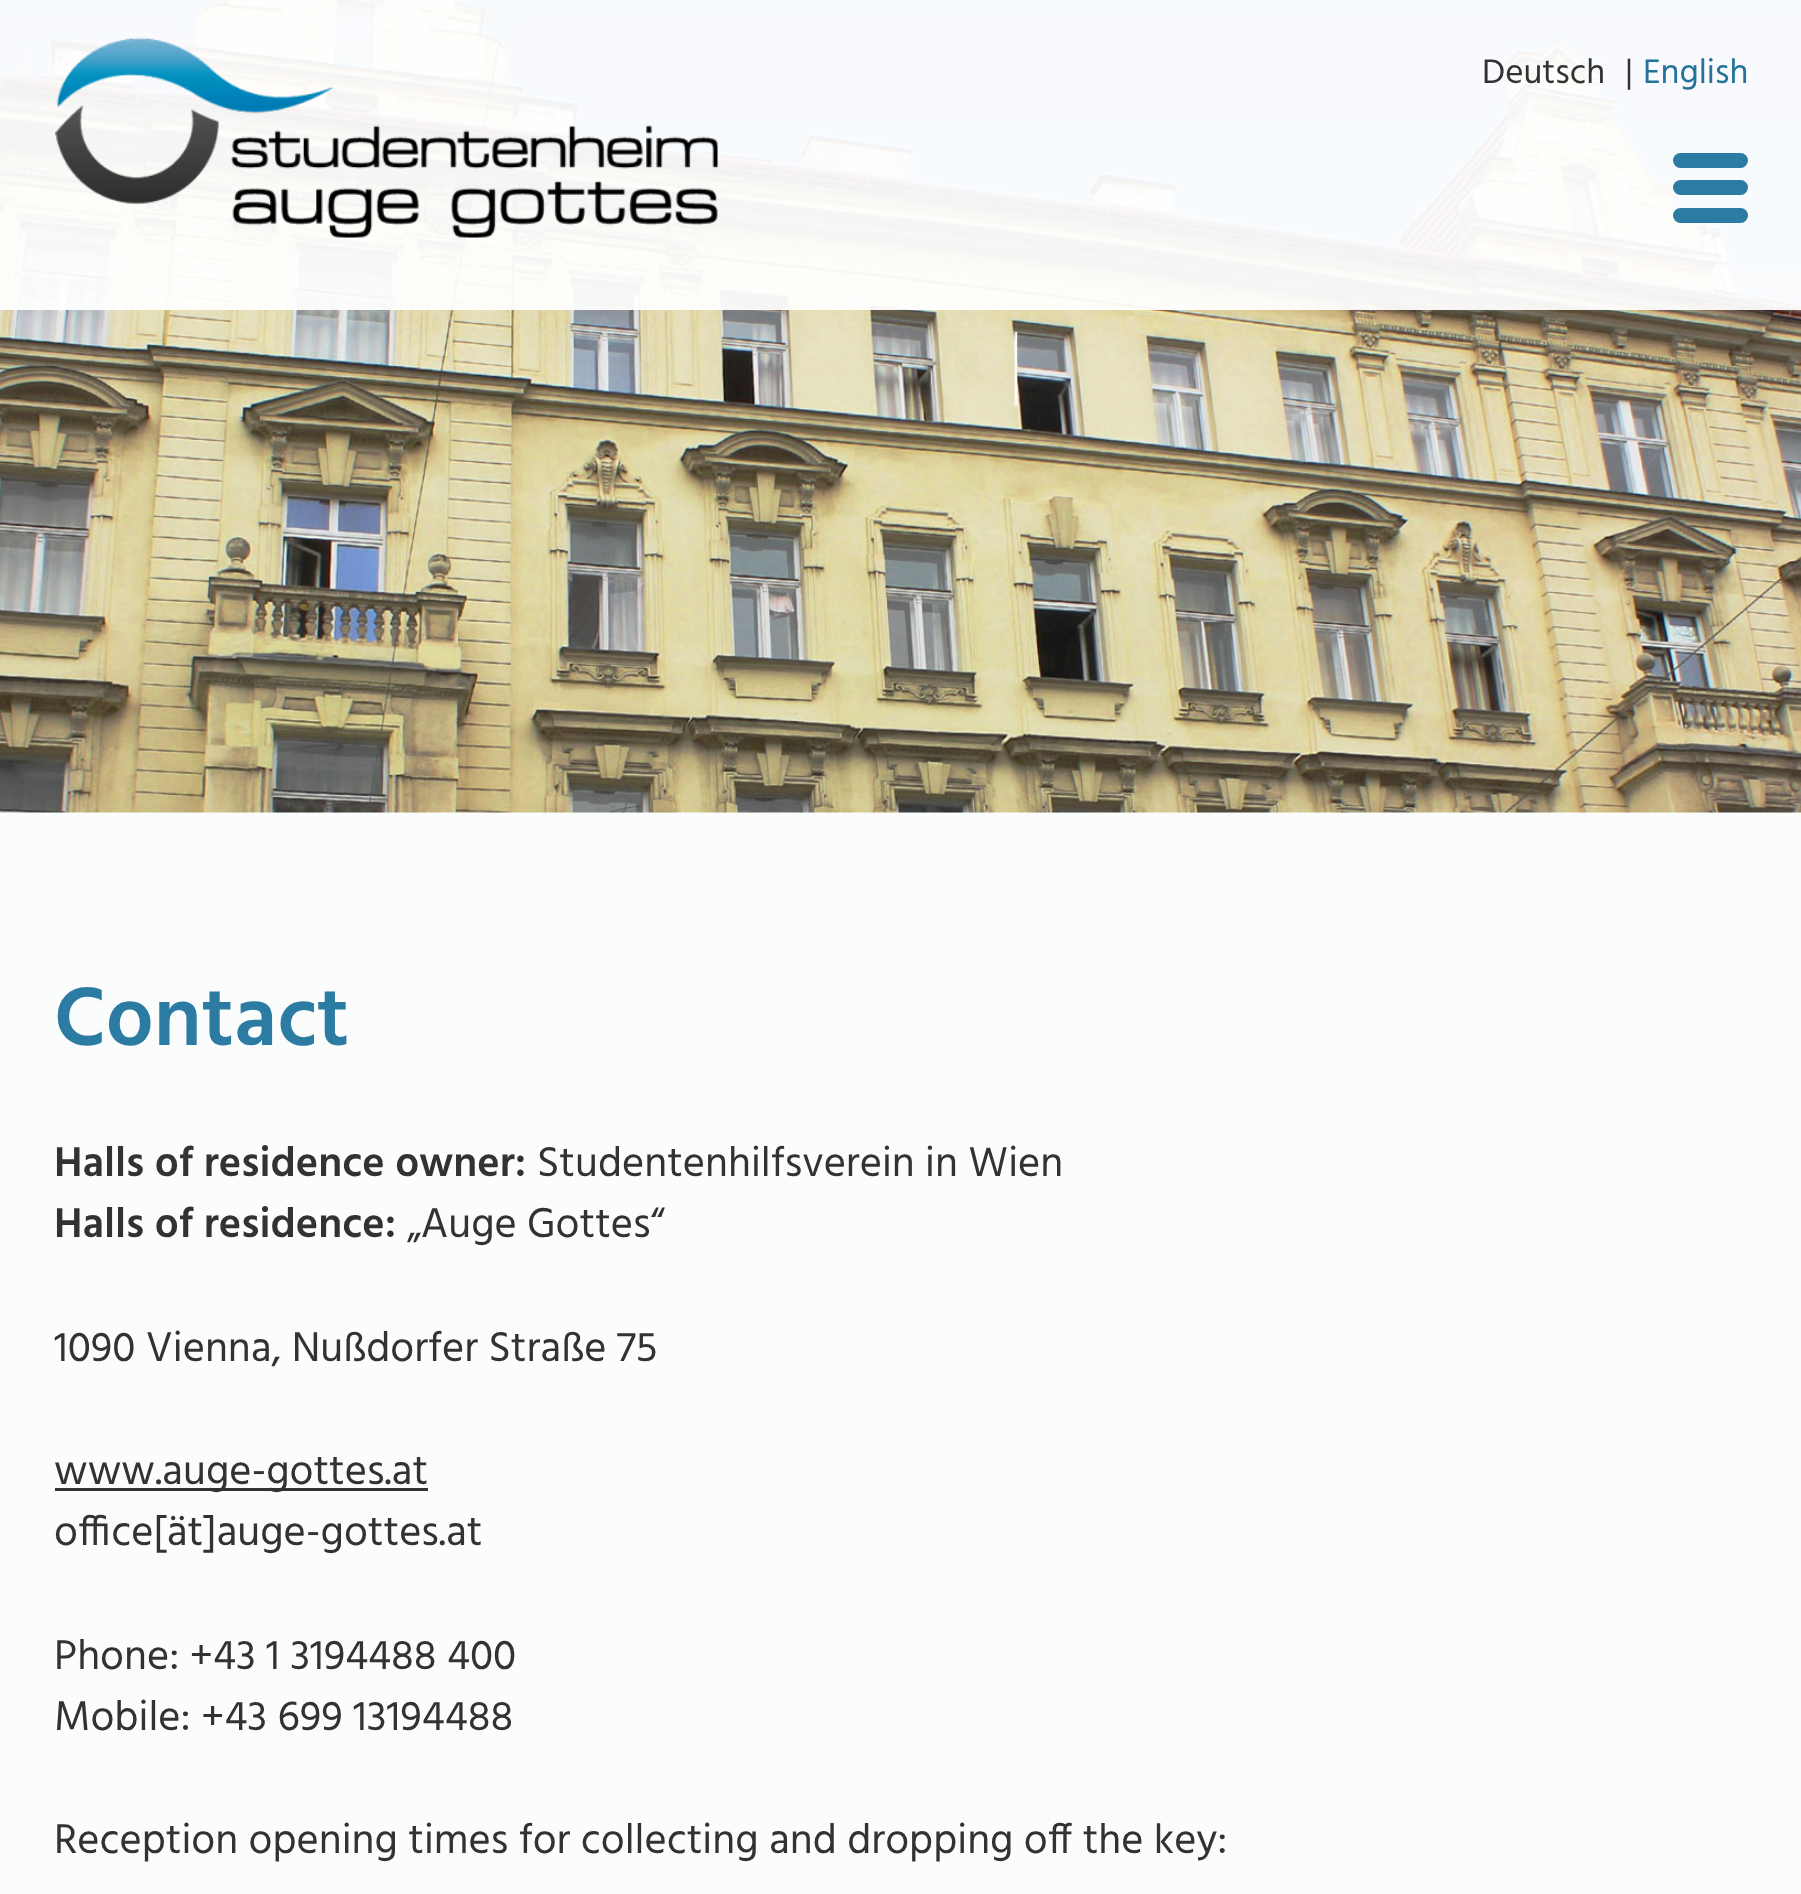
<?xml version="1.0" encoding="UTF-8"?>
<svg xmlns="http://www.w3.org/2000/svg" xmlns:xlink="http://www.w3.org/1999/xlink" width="1801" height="1894">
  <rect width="100%" height="100%" fill="#fbfcfc" />
  <image x="0" y="0" width="1801" height="813" xlink:href="image1.png" />
  <rect width="1801" height="310" fill="#ffffff" fill-opacity="0.94" />
  <image x="55" y="37" width="663" height="201" xlink:href="image2.png" />
  <rect x="1673" y="180" width="75" height="15" rx="7.5" fill="#2c7ba2" />
  <rect x="1673" y="153" width="75" height="15" rx="7.5" fill="#2c7ba2" />
  <rect x="1673" y="208" width="75" height="15" rx="7.5" fill="#2c7ba2" />
  <rect x="55" y="1488" width="373" height="3" fill="#323232" />
  <text x="1482" y="83" style="font-family: Hind; font-size: 35px; fill: #323232">Deutsch</text>
  <text x="1625" y="83" style="font-family: Hind; font-size: 35px; fill: #323232">|</text>
  <text x="1643" y="83" style="font-family: Hind; font-size: 35px; fill: #257399">English</text>
  <text x="54" y="1045" style="font-family: Hind; font-size: 85px; font-weight: 600; fill: #2c7ba2">Contact</text>
  <text x="54" y="1176" style="font-family: Hind; font-size: 42.5px; font-weight: 600; fill: #323232">Halls of residence owner:</text>
  <text x="537" y="1176" style="font-family: Hind; font-size: 42.5px; fill: #323232">Studentenhilfsverein in Wien</text>
  <text x="54" y="1237" style="font-family: Hind; font-size: 42.5px; font-weight: 600; fill: #323232">Halls of residence:</text>
  <text x="407" y="1237" style="font-family: Hind; font-size: 42.5px; fill: #323232">„Auge Gottes“</text>
  <text x="54" y="1361" style="font-family: Hind; font-size: 42.5px; fill: #323232">1090 Vienna, Nußdorfer Straße 75</text>
  <text x="54" y="1484" style="font-family: Hind; font-size: 42.5px; fill: #323232">www.auge-gottes.at</text>
  <text x="54" y="1545" style="font-family: Hind; font-size: 42.5px; fill: #323232">office[ät]auge-gottes.at</text>
  <text x="54" y="1669" style="font-family: Hind; font-size: 42.5px; fill: #323232">Phone: +43 1 3194488 400</text>
  <text x="54" y="1730" style="font-family: Hind; font-size: 42.5px; fill: #323232">Mobile: +43 699 13194488</text>
  <text x="54" y="1853" style="font-family: Hind; font-size: 42.5px; fill: #323232">Reception opening times for collecting and dropping off the key:</text>
</svg>
